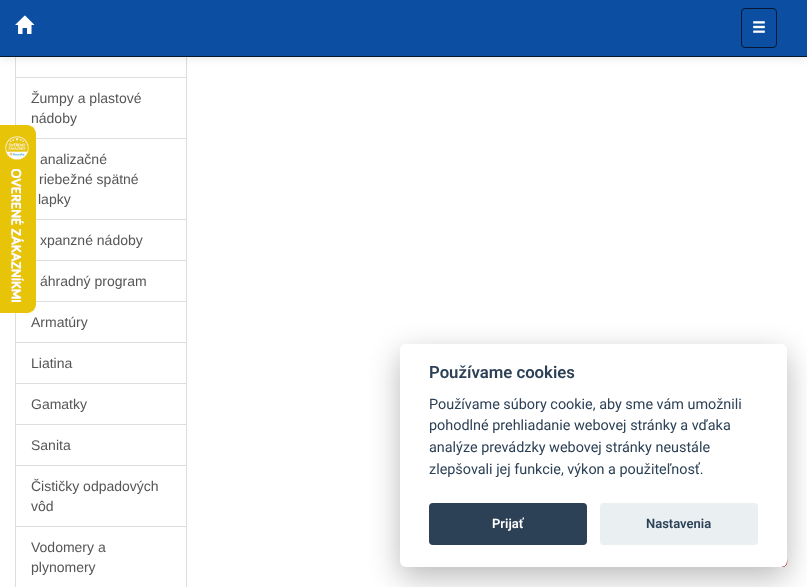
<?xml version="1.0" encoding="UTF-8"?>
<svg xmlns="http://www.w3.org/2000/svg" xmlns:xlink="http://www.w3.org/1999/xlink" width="807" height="587">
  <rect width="100%" height="100%" fill="#ffffff" />
  <rect x="15.5" y="-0.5" width="171" height="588" fill="none" stroke="#dddddd" />
  <rect y="1" width="807" height="57" fill="#000000" fill-opacity="0.1" filter="blur(5px)" />
  <rect width="807" height="56" fill="#0b4ea2" />
  <rect y="56" width="807" height="1" fill="#061733" />
  <image x="15" y="15" width="20" height="19" xlink:href="image1.png" />
  <rect x="741.5" y="8.5" width="35" height="39" rx="3.5" fill="none" stroke="#061733" />
  <image x="753" y="21" width="12" height="12" xlink:href="image2.png" />
  <rect x="16" y="77" width="170" height="1" fill="#dddddd" />
  <rect x="36" y="138" width="150" height="1" fill="#dddddd" />
  <rect x="36" y="219" width="150" height="1" fill="#dddddd" />
  <rect x="36" y="260" width="150" height="1" fill="#dddddd" />
  <rect x="36" y="301" width="150" height="1" fill="#dddddd" />
  <rect x="16" y="342" width="170" height="1" fill="#dddddd" />
  <rect x="16" y="383" width="170" height="1" fill="#dddddd" />
  <rect x="16" y="424" width="170" height="1" fill="#dddddd" />
  <rect x="16" y="465" width="170" height="1" fill="#dddddd" />
  <rect x="16" y="526" width="170" height="1" fill="#dddddd" />
  <path d="M 785.5 565.5 c -0.5 0.5 -1.5 1 -2.5 1 h -32 c -1 0 -2 -0.5 -2.5 -1" fill="none" stroke="#9a161a" />
  <path d="M 748.5 565.5 c -2 -2 -1 -5.5 -1 -7.5 v -20 c 0 -9 0 -8.5 9 -8.5 h 21 c 9 0 9 -0.5 9 8.5 v 20 c 0 2 1 5.5 -1 7.5" fill="none" stroke="#c71c22" />
  <rect x="400" y="354" width="387" height="223" rx="6" fill="#020203" fill-opacity="0.28" filter="blur(15px)" />
  <rect x="400" y="344" width="387" height="223" rx="6" fill="#ffffff" />
  <rect x="429" y="503" width="158" height="42" rx="4" fill="#2d4156" />
  <rect x="600" y="503" width="158" height="42" rx="4" fill="#eaeff2" />
  <text x="31" y="103" style="font-family: Liberation Sans; font-size: 14px; fill: #555555">Žumpy a plastové</text>
  <text x="31" y="123" style="font-family: Liberation Sans; font-size: 14px; fill: #555555">nádoby</text>
  <image x="0" y="125" width="36" height="188" xlink:href="image3.png" />
  <text x="40" y="164" style="font-family: Liberation Sans; font-size: 14px; fill: #555555">analizačné</text>
  <text x="39" y="184" style="font-family: Liberation Sans; font-size: 14px; fill: #555555">riebežné spätné</text>
  <text x="38" y="204" style="font-family: Liberation Sans; font-size: 14px; fill: #555555">lapky</text>
  <text x="40" y="245" style="font-family: Liberation Sans; font-size: 14px; fill: #555555">xpanzné nádoby</text>
  <text x="40" y="286" style="font-family: Liberation Sans; font-size: 14px; fill: #555555">áhradný program</text>
  <text x="31" y="327" style="font-family: Liberation Sans; font-size: 14px; fill: #555555">Armatúry</text>
  <text x="31" y="368" style="font-family: Liberation Sans; font-size: 14px; fill: #555555">Liatina</text>
  <text x="31" y="409" style="font-family: Liberation Sans; font-size: 14px; fill: #555555">Gamatky</text>
  <text x="31" y="450" style="font-family: Liberation Sans; font-size: 14px; fill: #555555">Sanita</text>
  <text x="31" y="491" style="font-family: Liberation Sans; font-size: 14px; fill: #555555">Čističky odpadových</text>
  <text x="31" y="511" style="font-family: Liberation Sans; font-size: 14px; fill: #555555">vôd</text>
  <text x="31" y="552" style="font-family: Liberation Sans; font-size: 14px; fill: #555555">Vodomery a</text>
  <text x="31" y="572" style="font-family: Liberation Sans; font-size: 14px; fill: #555555">plynomery</text>
  <text x="429" y="378" style="font-family: Roboto; font-size: 16.75px; font-weight: 600; fill: #2d4156">Používame cookies</text>
  <text x="429" y="409" style="font-family: Roboto; font-size: 14.4px; fill: #2d4156">Používame súbory cookie, aby sme vám umožnili</text>
  <text x="429" y="430" style="font-family: Roboto; font-size: 14.4px; fill: #2d4156">pohodlné prehliadanie webovej stránky a vďaka</text>
  <text x="429" y="452" style="font-family: Roboto; font-size: 14.4px; fill: #2d4156">analýze prevádzky webovej stránky neustále</text>
  <text x="429" y="474" style="font-family: Roboto; font-size: 14.4px; fill: #2d4156">zlepšovali jej funkcie, výkon a použiteľnosť.</text>
  <text x="492" y="528" style="font-family: Roboto; font-size: 13px; font-weight: 600; fill: #ffffff">Prijať</text>
  <text x="646" y="528" style="font-family: Roboto; font-size: 13px; font-weight: 600; fill: #2d4156">Nastavenia</text>
</svg>
